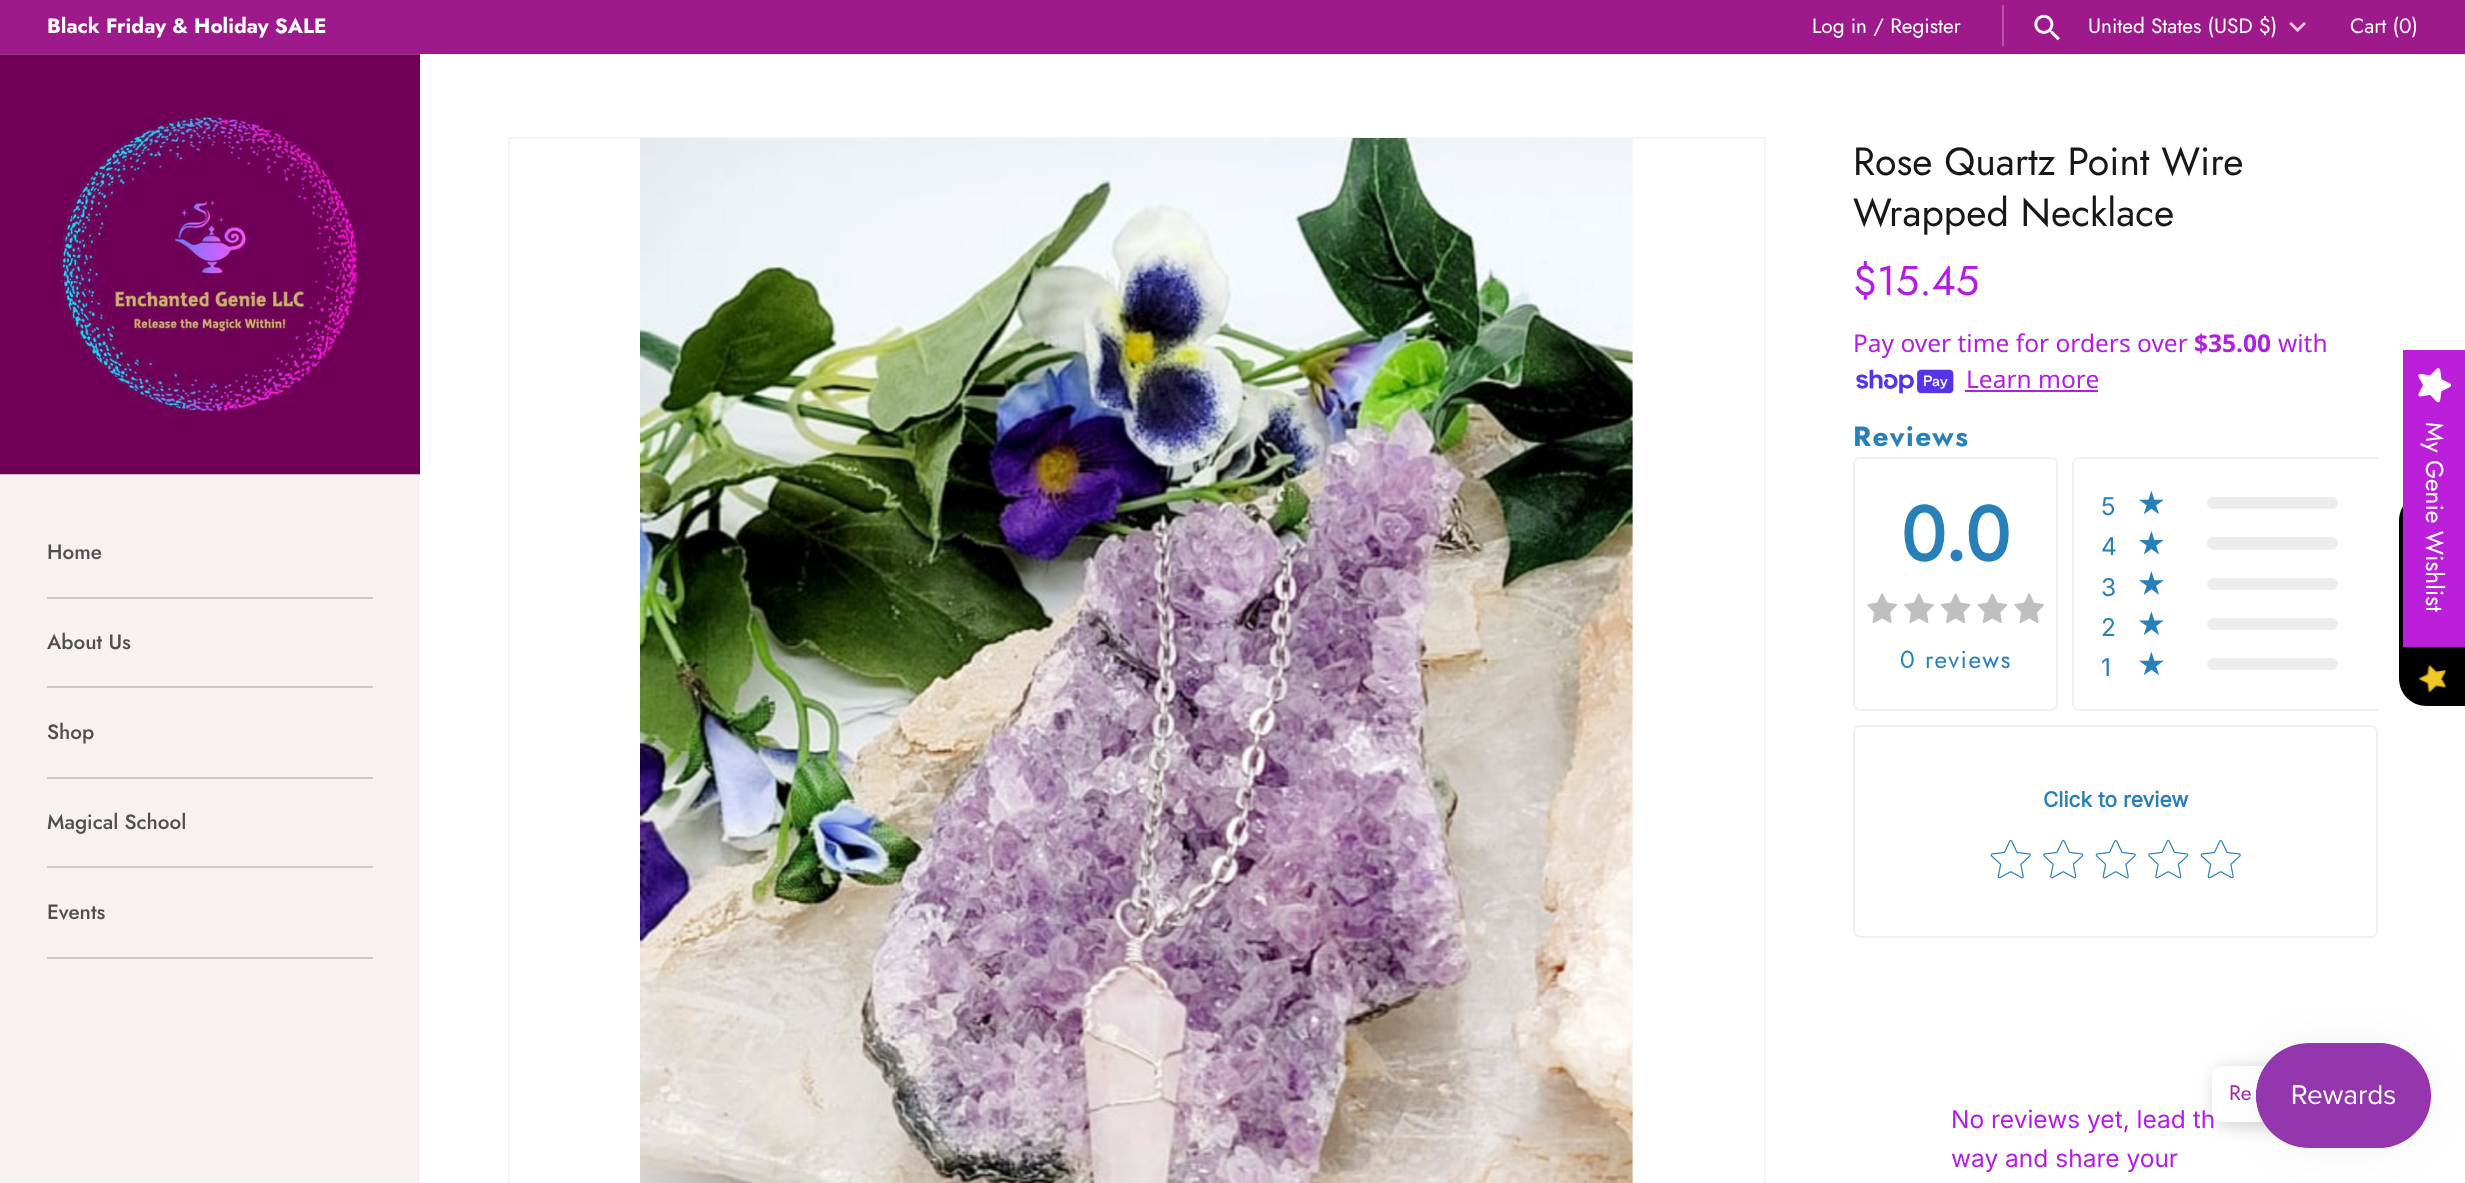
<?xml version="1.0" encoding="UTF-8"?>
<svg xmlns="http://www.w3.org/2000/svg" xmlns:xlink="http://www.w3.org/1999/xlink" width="2465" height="1183">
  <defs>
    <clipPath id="clip1"><rect x="1853" y="418" width="525" height="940" /></clipPath>
  </defs>
  <rect width="100%" height="100%" fill="#ffffff" />
  <rect width="2465" height="54" fill="#9e1a8c" />
  <rect x="2002" y="5" width="2" height="41" fill="#b653a9" />
  <image x="2034" y="14" width="26" height="27" xlink:href="image1.png" />
  <image x="2289" y="21" width="17" height="12" xlink:href="image2.png" />
  <rect y="54" width="420" height="1129" fill="#f7f1f0" />
  <image x="0" y="54" width="420" height="421" xlink:href="image3.png" />
  <rect x="47" y="597" width="326" height="2" fill="#cdc8c8" />
  <rect x="47" y="686" width="326" height="2" fill="#cdc8c8" />
  <rect x="47" y="777" width="326" height="2" fill="#cdc8c8" />
  <rect x="47" y="866" width="326" height="2" fill="#cdc8c8" />
  <rect x="47" y="957" width="326" height="2" fill="#cdc8c8" />
  <rect x="509" y="138" width="1256" height="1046" fill="none" stroke="#f5f5f5" stroke-width="2" />
  <image x="640" y="138" width="993" height="1045" xlink:href="image4.png" />
  <image x="1856" y="369" width="98" height="25" xlink:href="image5.png" />
  <rect x="1965" y="390" width="133" height="2" fill="#b31ee4" />
  <rect x="1854" y="458" width="203" height="252" rx="6" fill="none" stroke="#f0f0f0" stroke-width="2" />
  <image x="1867" y="593" width="30" height="30" xlink:href="image6.png" />
  <image x="1904" y="593" width="30" height="30" xlink:href="image7.png" />
  <image x="1940" y="593" width="31" height="30" xlink:href="image8.png" />
  <image x="1977" y="593" width="31" height="30" xlink:href="image9.png" />
  <image x="2014" y="593" width="30" height="30" xlink:href="image6.png" />
  <g clip-path="url(#clip1)">
    <rect x="2073" y="458" width="364" height="252" rx="6" fill="none" stroke="#f0f0f0" stroke-width="2" />
  </g>
  <image x="2139" y="490" width="25" height="25" xlink:href="image10.png" />
  <rect x="2207" y="497" width="131" height="12" rx="6" fill="#ededed" />
  <image x="2139" y="531" width="25" height="24" xlink:href="image11.png" />
  <rect x="2207" y="537" width="131" height="13" rx="6.5" fill="#ededed" />
  <image x="2139" y="571" width="25" height="24" xlink:href="image12.png" />
  <rect x="2207" y="578" width="131" height="12" rx="6" fill="#ededed" />
  <image x="2139" y="611" width="25" height="24" xlink:href="image13.png" />
  <rect x="2207" y="618" width="131" height="12" rx="6" fill="#ededed" />
  <image x="2139" y="651" width="25" height="25" xlink:href="image10.png" />
  <rect x="2207" y="658" width="131" height="12" rx="6" fill="#ededed" />
  <rect x="1854" y="726" width="523" height="211" rx="6" fill="none" stroke="#f0f0f0" stroke-width="2" />
  <image x="1990" y="840" width="41" height="39" xlink:href="image14.png" />
  <image x="2043" y="840" width="41" height="39" xlink:href="image15.png" />
  <image x="2095" y="840" width="41" height="39" xlink:href="image14.png" />
  <image x="2148" y="840" width="41" height="39" xlink:href="image15.png" />
  <image x="2200" y="840" width="41" height="39" xlink:href="image14.png" />
  <path d="M 2399 678 v -157 c 0 -16 12 -28 28 -28 h 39 v 213 h -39 c -16 0 -28 -12 -28 -28 z" fill="#000000" />
  <rect x="2403" y="350" width="62" height="297" fill="#bc1fda" />
  <image x="2418" y="368" width="33" height="35" xlink:href="image16.png" />
  <image x="2418" y="665" width="28" height="27" xlink:href="image17.png" />
  <circle cx="2378.5" cy="1095.5" r="52.5" fill="#a827a8" />
  <rect x="2216" y="1069" width="108" height="56" rx="9" fill="#000000" fill-opacity="0.2" filter="blur(9px)" />
  <text x="47" y="33" style="font-family: Jost; font-size: 20.75px; font-weight: bold; fill: #ffffff">Black Friday &amp; Holiday SALE</text>
  <text x="1812" y="33" style="font-family: Jost; font-size: 20.75px; fill: #ffffff">Log in / Register</text>
  <text x="2088" y="33" style="font-family: Jost; font-size: 20.75px; fill: #ffffff">United States (USD $)</text>
  <text x="2350" y="33" style="font-family: Jost; font-size: 20.75px; fill: #ffffff">Cart (0)</text>
  <text x="47" y="559" style="font-family: Jost; font-size: 20.75px; font-weight: 500; fill: #4e4e4e">Home</text>
  <text x="47" y="649" style="font-family: Jost; font-size: 20.75px; font-weight: 500; fill: #4e4e4e">About Us</text>
  <text x="47" y="739" style="font-family: Jost; font-size: 20.75px; font-weight: 500; fill: #4e4e4e">Shop</text>
  <text x="47" y="829" style="font-family: Jost; font-size: 20.75px; font-weight: 500; fill: #4e4e4e">Magical School</text>
  <text x="47" y="919" style="font-family: Jost; font-size: 20.75px; font-weight: 500; fill: #4e4e4e">Events</text>
  <text x="1853" y="175" style="font-family: Jost; font-size: 39.25px; fill: #171717">Rose Quartz Point Wire</text>
  <text x="1853" y="226" style="font-family: Jost; font-size: 39.25px; fill: #171717">Wrapped Necklace</text>
  <text x="1853" y="295" style="font-family: Jost; font-size: 41.5px; fill: #b31ee4">$15.45</text>
  <text x="1853" y="352" style="font-family: Noto Sans; font-size: 24.5px; fill: #b31ee4">Pay over time for orders over</text>
  <text x="2194" y="352" style="font-family: Noto Sans; font-size: 24.5px; font-weight: bold; fill: #b31ee4">$35.00</text>
  <text x="2278" y="352" style="font-family: Noto Sans; font-size: 24.5px; fill: #b31ee4">with</text>
  <text x="1966" y="388" style="font-family: Noto Sans; font-size: 24.5px; fill: #b31ee4">Learn more</text>
  <text x="1853" y="446" style="font-family: Jost; font-size: 28px; font-weight: bold; letter-spacing: 1.5px; fill: #2980b9">Reviews</text>
  <text x="1900" y="561" style="font-family: Inter; font-size: 74px; font-weight: bold; fill: #2980b9">0.0</text>
  <text x="1900" y="668" style="font-family: Jost; font-size: 24.5px; letter-spacing: 1.5px; fill: #2980b9">0 reviews</text>
  <text x="2101" y="515" style="font-family: Inter; font-size: 24.5px; fill: #2980b9">5</text>
  <text x="2101" y="555" style="font-family: Inter; font-size: 24.5px; fill: #2980b9">4</text>
  <text x="2101" y="596" style="font-family: Inter; font-size: 24.5px; fill: #2980b9">3</text>
  <text x="2101" y="636" style="font-family: Inter; font-size: 24.5px; fill: #2980b9">2</text>
  <text x="2101" y="676" style="font-family: Inter; font-size: 24.5px; fill: #2980b9">1</text>
  <text x="2043" y="807" style="font-family: Inter; font-size: 21px; font-weight: bold; fill: #2980b9">Click to review</text>
  <text x="1951" y="1128" style="font-family: Inter; font-size: 24.5px; fill: #b31ee4">No reviews yet, lead th</text>
  <text x="1951" y="1167" style="font-family: Inter; font-size: 24.5px; fill: #b31ee4">way and share your</text>
  <text x="2426" y="422" transform="rotate(90 2426 422)" style="font-family: Jost; font-size: 24.5px; fill: #ffffff">My Genie Wishlist</text>
  <rect x="2212" y="1066" width="109" height="56" rx="9" fill="#ffffff" />
  <rect x="2256" y="1043" width="175" height="105" rx="52.5" fill="#000000" fill-opacity="0.05" filter="blur(22px)" />
  <image x="2256" y="1043" width="175" height="105" xlink:href="image18.png" />
  <text x="2229" y="1100" style="font-family: Jost; font-size: 21px; fill: #a827a8">Re</text>
</svg>
